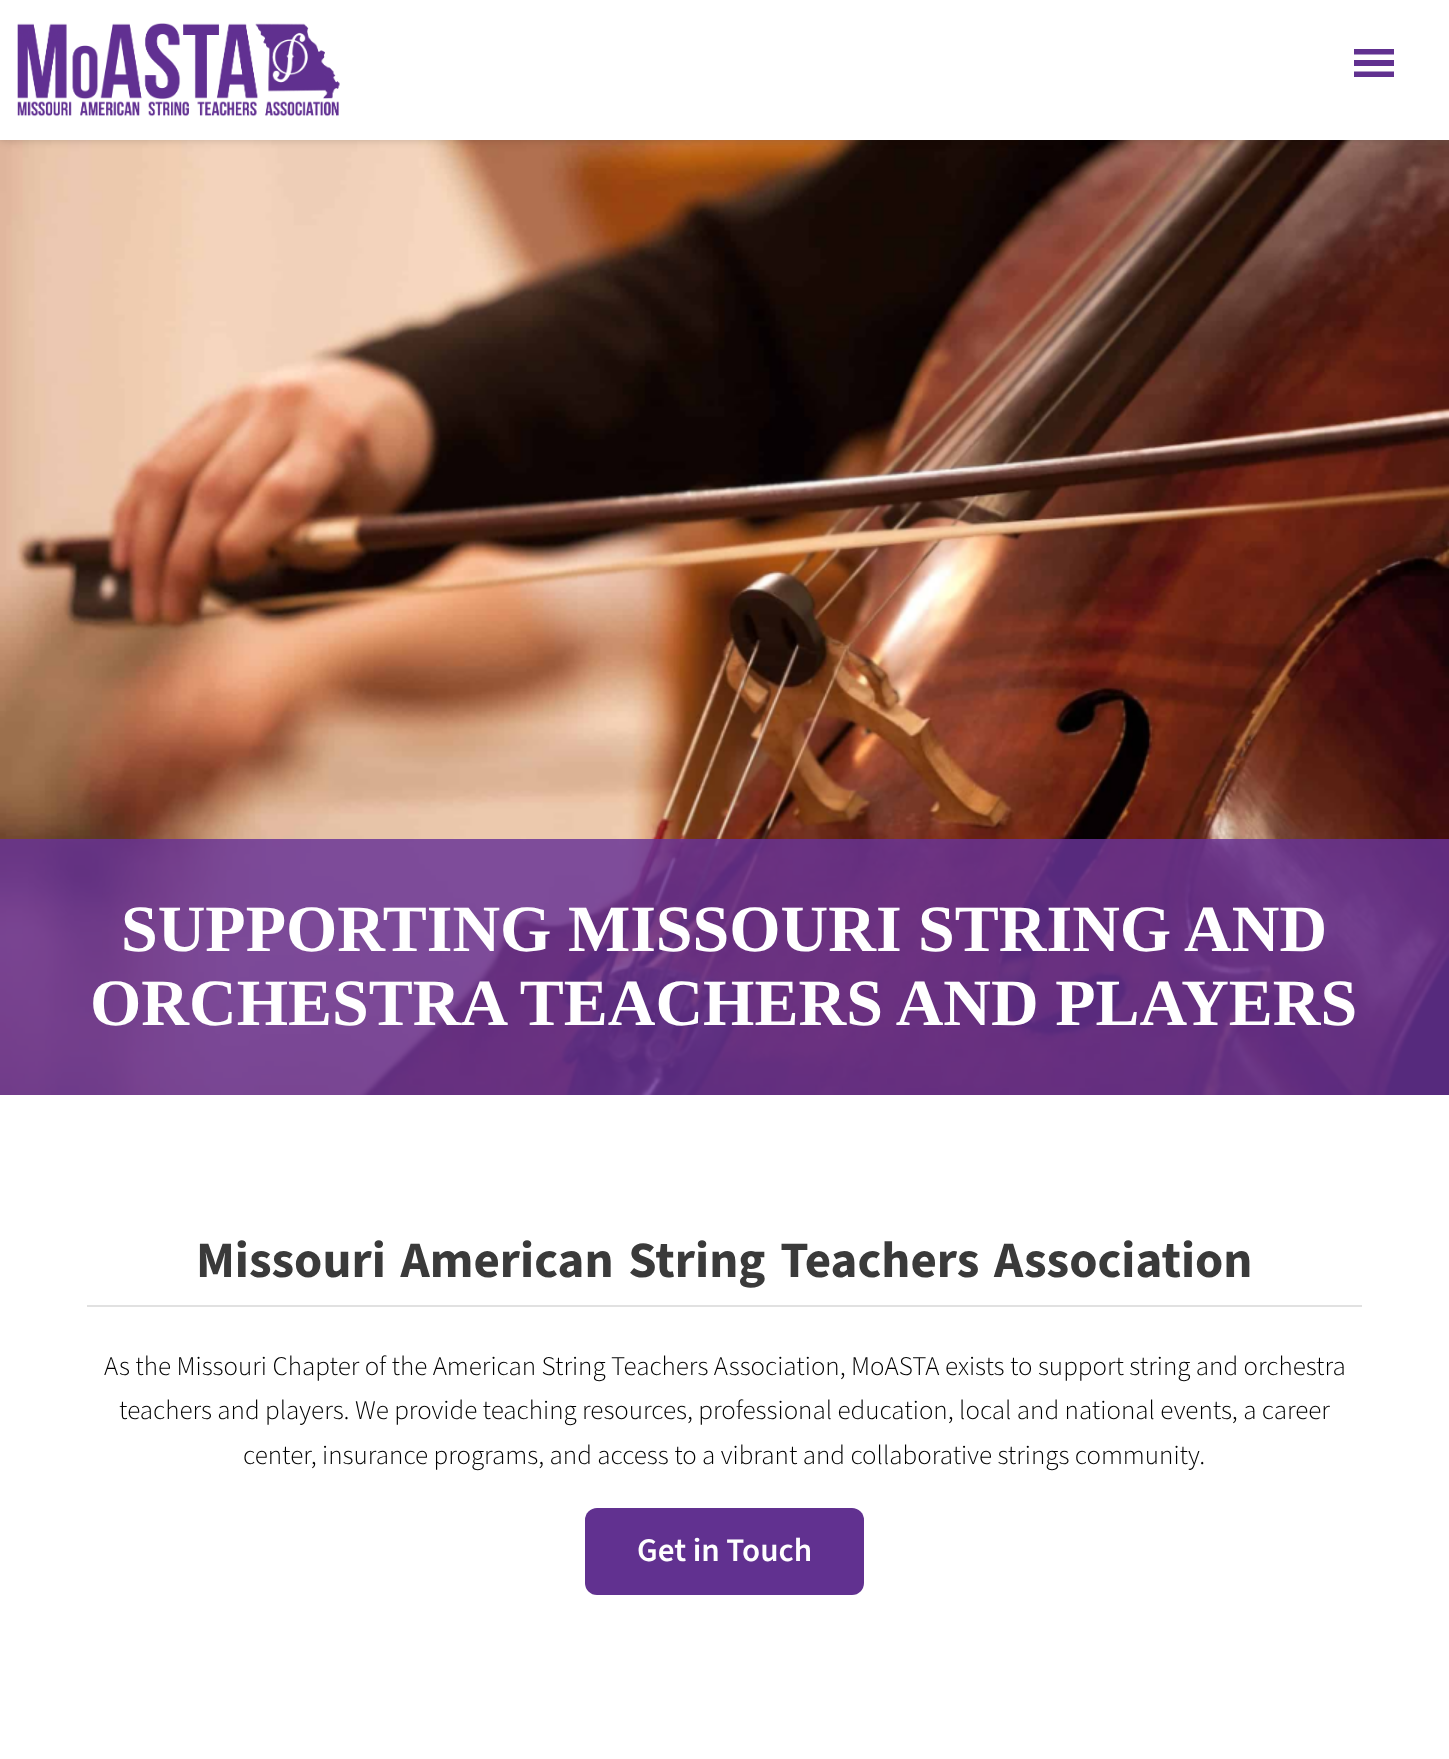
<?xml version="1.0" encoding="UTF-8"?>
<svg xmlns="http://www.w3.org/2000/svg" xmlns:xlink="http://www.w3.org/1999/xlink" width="1449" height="1759">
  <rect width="100%" height="100%" fill="#ffffff" />
  <image x="0" y="140" width="1449" height="955" xlink:href="image2.png" />
  <rect width="1449" height="140" fill="#000000" fill-opacity="0.18" filter="blur(4.5px)" />
  <rect width="1449" height="140" fill="#ffffff" />
  <image x="17" y="23" width="323" height="94" xlink:href="image1.png" />
  <path d="M 1354 77 h 40 v -5.5 h -40 z m 0 -28 v 5.5 h 40 v -5.5 z m 0 17 h 40 v -6 h -40 z" fill="#613190" />
  <rect y="839" width="1449" height="256" fill="#683396" fill-opacity="0.83" />
  <rect x="87" y="1305" width="1275" height="2" fill="#e1e1e1" />
  <rect x="585" y="1508" width="279" height="87" rx="12" fill="#613190" />
  <text x="121" y="951" style="font-family: Liberation Serif; font-size: 66px; font-weight: bold; fill: #ffffff">SUPPORTING MISSOURI STRING AND</text>
  <text x="90" y="1025" style="font-family: Liberation Serif; font-size: 66px; font-weight: bold; fill: #ffffff">ORCHESTRA TEACHERS AND PLAYERS</text>
  <text x="196" y="1277" word-spacing="4.5" style="font-family: 'Source Sans 3'; font-size: 51px; font-weight: bold; fill: #3a3a3a">Missouri American String Teachers Association</text>
  <text x="104" y="1375" style="font-family: 'Source Sans 3'; font-size: 27px; font-weight: 300; fill: #000000">As the Missouri Chapter of the American String Teachers Association, MoASTA exists to support string and orchestra</text>
  <text x="119" y="1419" style="font-family: 'Source Sans 3'; font-size: 27px; font-weight: 300; fill: #000000">teachers and players. We provide teaching resources, professional education, local and national events, a career</text>
  <text x="243" y="1464" style="font-family: 'Source Sans 3'; font-size: 27px; font-weight: 300; fill: #000000">center, insurance programs, and access to a vibrant and collaborative strings community.</text>
  <text x="637" y="1561" style="font-family: 'Source Sans 3'; font-size: 33px; font-weight: 600; fill: #ffffff">Get in Touch</text>
</svg>
